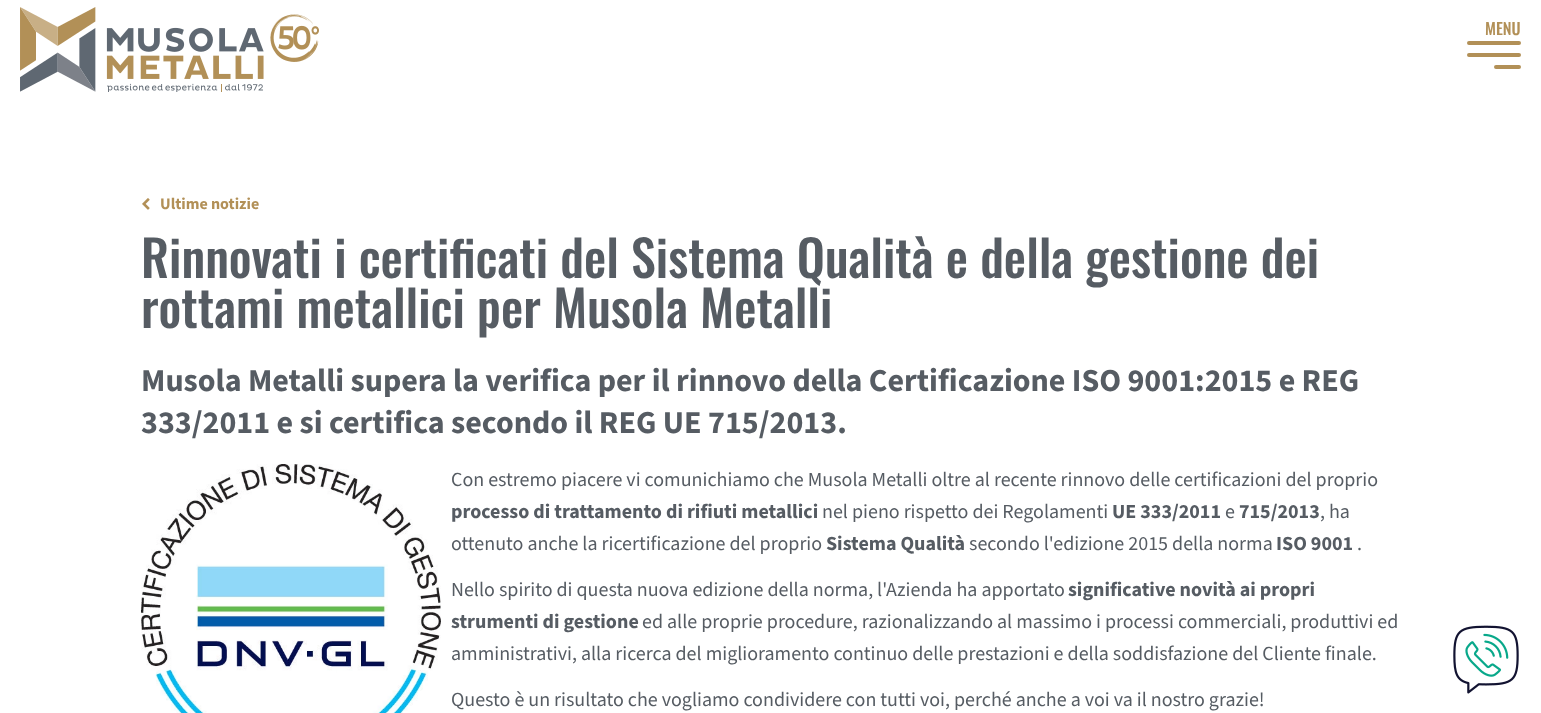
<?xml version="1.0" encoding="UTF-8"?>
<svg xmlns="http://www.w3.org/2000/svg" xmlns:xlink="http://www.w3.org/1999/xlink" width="1541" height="713">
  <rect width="100%" height="100%" fill="#ffffff" />
  <image x="20" y="7" width="299" height="85" xlink:href="image1.png" />
  <path d="M 1519 43 h -50 m 50 12 h -50 m 50 12 h -23" fill="none" stroke="#b29057" stroke-width="4" stroke-linecap="round" />
  <image x="142" y="198" width="8" height="12" xlink:href="image2.png" />
  <image x="141" y="464" width="300" height="249" xlink:href="image3.png" />
  <image x="1453" y="625" width="66" height="69" xlink:href="image4.png" />
  <text x="1485" y="35" style="font-family: Oswald; font-size: 16px; font-weight: 500; fill: #b29057">MENU</text>
  <text x="160" y="209" style="font-family: 'Source Sans 3'; font-size: 16px; font-weight: bold; fill: #b29057">Ultime notizie</text>
  <text x="141" y="278" style="font-family: Oswald; font-size: 50px; font-weight: 500; fill: #565c63">Rinnovati i certificati del Sistema Qualità e della gestione dei</text>
  <text x="141" y="328" style="font-family: Oswald; font-size: 50px; font-weight: 500; fill: #565c63">rottami metallici per Musola Metalli</text>
  <text x="141" y="391" style="font-family: 'Source Sans 3'; font-size: 32px; font-weight: bold; fill: #565c63">Musola Metalli supera la verifica per il rinnovo della Certificazione ISO 9001:2015 e REG</text>
  <text x="141" y="433" style="font-family: 'Source Sans 3'; font-size: 32px; font-weight: bold; fill: #565c63">333/2011 e si certifica secondo il REG UE 715/2013.</text>
  <text x="451" y="486" style="font-family: 'Source Sans 3'; font-size: 20px; fill: #565c63">Con estremo piacere vi comunichiamo che Musola Metalli oltre al recente rinnovo delle certificazioni del proprio</text>
  <text x="451" y="518" style="font-family: 'Source Sans 3'; font-size: 20px; font-weight: bold; fill: #565c63">processo di trattamento di rifiuti metallici</text>
  <text x="822" y="518" style="font-family: 'Source Sans 3'; font-size: 20px; fill: #565c63">nel pieno rispetto dei Regolamenti</text>
  <text x="1112" y="518" style="font-family: 'Source Sans 3'; font-size: 20px; font-weight: bold; fill: #565c63">UE 333/2011</text>
  <text x="1225" y="518" style="font-family: 'Source Sans 3'; font-size: 20px; fill: #565c63">e</text>
  <text x="1239" y="518" style="font-family: 'Source Sans 3'; font-size: 20px; font-weight: bold; fill: #565c63">715/2013</text>
  <text x="1320" y="518" style="font-family: 'Source Sans 3'; font-size: 20px; fill: #565c63">, ha</text>
  <text x="451" y="550" style="font-family: 'Source Sans 3'; font-size: 20px; fill: #565c63">ottenuto anche la ricertificazione del proprio</text>
  <text x="826" y="550" style="font-family: 'Source Sans 3'; font-size: 20px; font-weight: bold; fill: #565c63">Sistema Qualità</text>
  <text x="969" y="550" style="font-family: 'Source Sans 3'; font-size: 20px; fill: #565c63">secondo l'edizione 2015 della norma</text>
  <text x="1276" y="550" style="font-family: 'Source Sans 3'; font-size: 20px; font-weight: bold; fill: #565c63">ISO 9001</text>
  <text x="1357" y="550" style="font-family: 'Source Sans 3'; font-size: 20px; fill: #565c63">.</text>
  <text x="451" y="596" style="font-family: 'Source Sans 3'; font-size: 20px; fill: #565c63">Nello spirito di questa nuova edizione della norma, l'Azienda ha apportato</text>
  <text x="1068" y="596" style="font-family: 'Source Sans 3'; font-size: 20px; font-weight: bold; fill: #565c63">significative novità ai propri</text>
  <text x="451" y="628" style="font-family: 'Source Sans 3'; font-size: 20px; font-weight: bold; fill: #565c63">strumenti di gestione</text>
  <text x="642" y="628" style="font-family: 'Source Sans 3'; font-size: 20px; fill: #565c63">ed alle proprie procedure, razionalizzando al massimo i processi commerciali, produttivi ed</text>
  <text x="451" y="660" style="font-family: 'Source Sans 3'; font-size: 20px; fill: #565c63">amministrativi, alla ricerca del miglioramento continuo delle prestazioni e della soddisfazione del Cliente finale.</text>
  <text x="451" y="706" style="font-family: 'Source Sans 3'; font-size: 20px; fill: #565c63">Questo è un risultato che vogliamo condividere con tutti voi, perché anche a voi va il nostro grazie!</text>
</svg>
